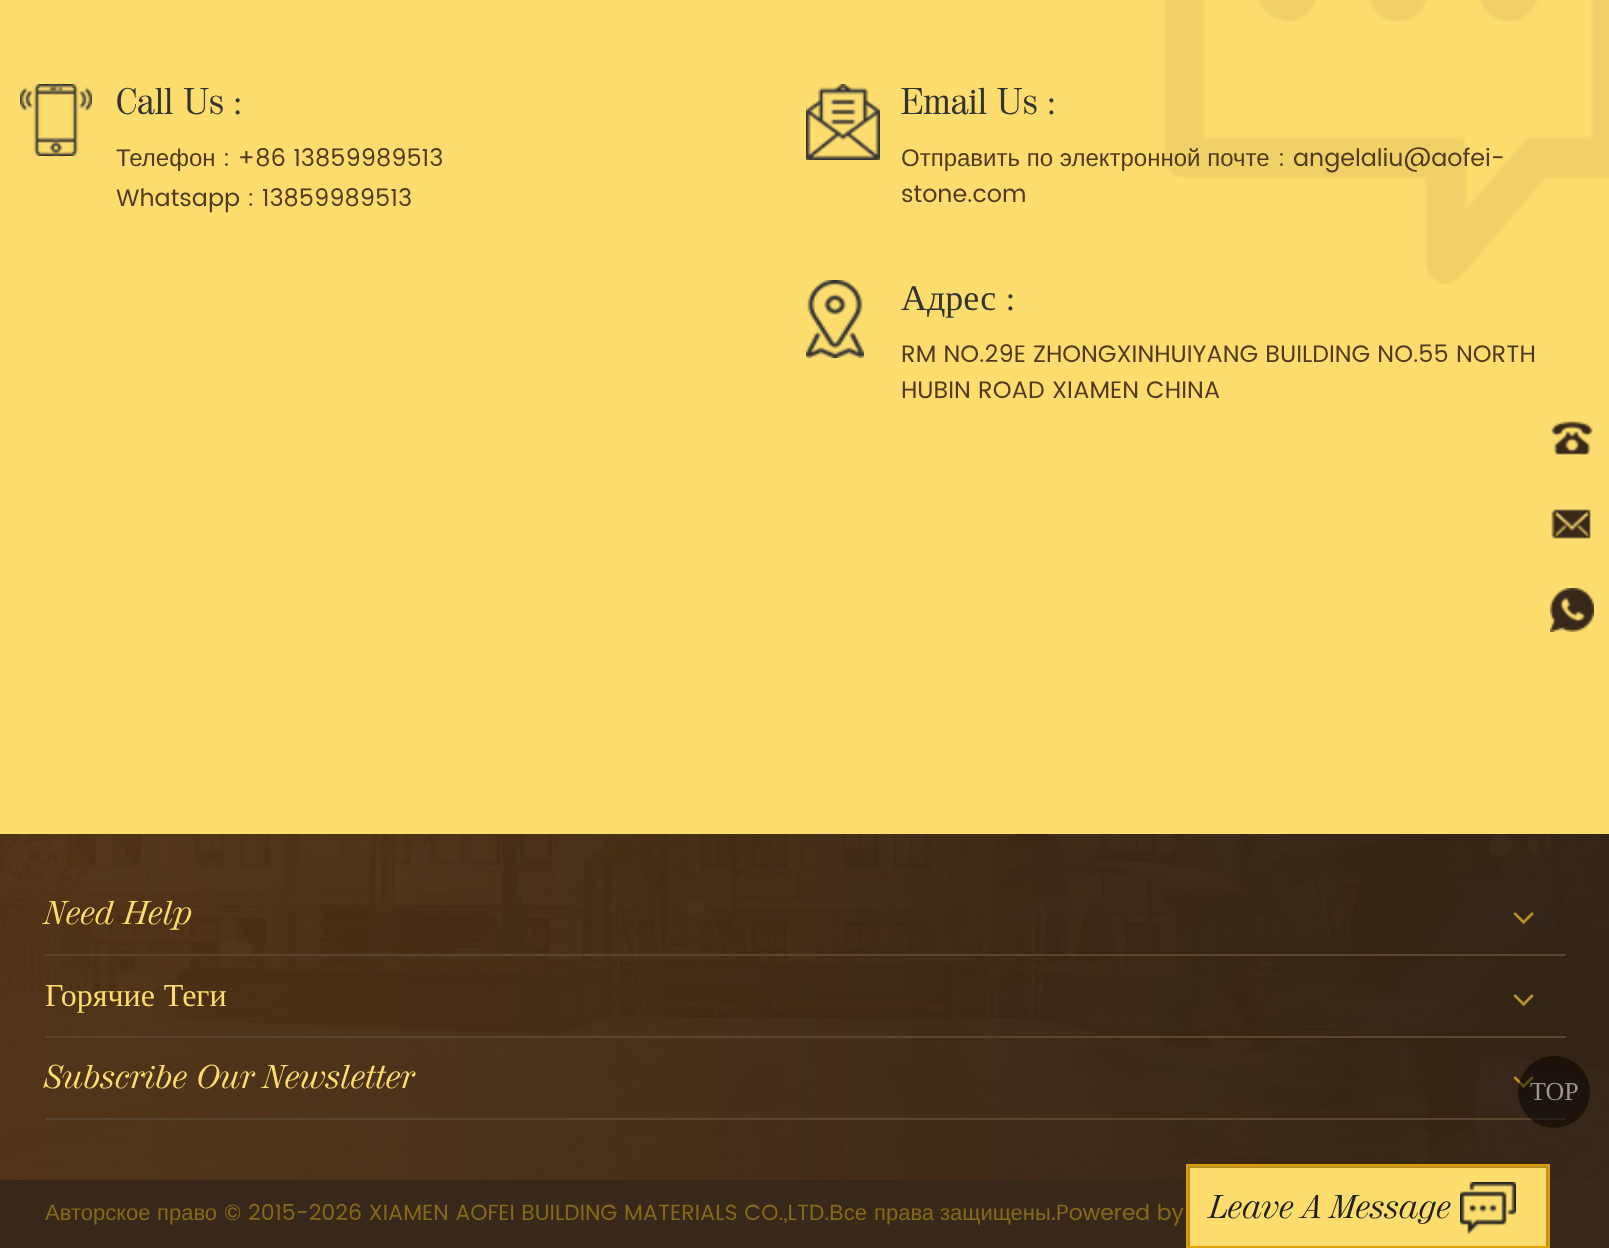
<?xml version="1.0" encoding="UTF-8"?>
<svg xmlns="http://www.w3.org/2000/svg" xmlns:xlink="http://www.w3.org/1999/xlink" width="1609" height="1248">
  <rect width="100%" height="100%" fill="#37281a" />
  <rect width="1609" height="834" fill="#fddd6e" />
  <image x="1164" y="0" width="445" height="284" xlink:href="image1.png" />
  <image x="20" y="84" width="72" height="72" xlink:href="image2.png" />
  <image x="806" y="84" width="74" height="76" xlink:href="image3.png" />
  <image x="806" y="280" width="58" height="78" xlink:href="image4.png" />
  <image x="0" y="834" width="1609" height="346" xlink:href="image5.png" />
  <rect x="46" y="954" width="1520" height="2" fill="#5a4531" />
  <image x="1513" y="912" width="21" height="12" xlink:href="image6.png" />
  <rect x="46" y="1036" width="1520" height="2" fill="#5a4531" />
  <image x="1513" y="994" width="21" height="12" xlink:href="image7.png" />
  <rect x="46" y="1118" width="1520" height="2" fill="#5a4531" />
  <image x="1513" y="1076" width="21" height="12" xlink:href="image8.png" />
  <image x="1551" y="421" width="42" height="34" xlink:href="image9.png" />
  <image x="1551" y="509" width="40" height="30" xlink:href="image10.png" />
  <image x="1550" y="588" width="44" height="44" xlink:href="image11.png" />
  <circle cx="1554" cy="1092" r="36" fill="#000000" fill-opacity="0.5" />
  <rect x="1187" y="1165" width="362" height="82" fill="none" stroke="#df9e03" stroke-width="2" />
  <rect x="1190" y="1168" width="356" height="78" fill="#fddd6e" />
  <image x="1460" y="1182" width="56" height="52" xlink:href="image12.png" />
  <rect x="1188" y="1166" width="360" height="2" fill="#b89125" />
  <rect x="1546" y="1166" width="2" height="80" fill="#b89125" />
  <rect x="1188" y="1166" width="2" height="80" fill="#b89125" />
  <text x="116" y="114" style="font-family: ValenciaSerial; font-size: 36px; fill: #333333">Call Us :</text>
  <text x="116" y="166" style="font-family: Liberation Sans; font-size: 24px; fill: #513922">Телефон</text>
  <text x="223" y="166" style="font-family: Poppins; font-size: 24px; fill: #513922">: +86 13859989513</text>
  <text x="116" y="206" style="font-family: Poppins; font-size: 24px; fill: #513922">Whatsapp : 13859989513</text>
  <text x="901" y="114" style="font-family: ValenciaSerial; font-size: 36px; fill: #333333">Email Us :</text>
  <text x="901" y="166" style="font-family: Liberation Sans; font-size: 24px; fill: #513922">Отправить по электронной почте</text>
  <text x="1278" y="166" style="font-family: Poppins; font-size: 24px; fill: #513922">:</text>
  <text x="1293" y="166" style="font-family: Poppins; font-size: 24px; fill: #513922">angelaliu@aofei-</text>
  <text x="901" y="202" style="font-family: Poppins; font-size: 24px; fill: #513922">stone.com</text>
  <text x="901" y="310" style="font-family: Liberation Serif; font-size: 36px; fill: #333333">Адрес</text>
  <text x="1007" y="310" style="font-family: ValenciaSerial; font-size: 36px; fill: #333333">:</text>
  <text x="901" y="362" style="font-family: Poppins; font-size: 24px; fill: #513922">RM NO.29E ZHONGXINHUIYANG BUILDING NO.55 NORTH</text>
  <text x="901" y="398" style="font-family: Poppins; font-size: 24px; fill: #513922">HUBIN ROAD XIAMEN CHINA</text>
  <text x="45" y="924" style="font-family: ValenciaSerial; font-size: 32px; font-style: italic; fill: #fddd6e">Need Help</text>
  <text x="45" y="1006" word-spacing="1" style="font-family: Liberation Serif; font-size: 32px; fill: #fddd6e">Горячие Теги</text>
  <text x="45" y="1088" style="font-family: ValenciaSerial; font-size: 32px; font-style: italic; fill: #fddd6e">Subscribe Our Newsletter</text>
  <text x="1530" y="1100" style="font-family: Liberation Serif; font-size: 26px; fill: #9b938c">TOP</text>
  <text x="45" y="1220" style="font-family: Liberation Sans; font-size: 22px; fill: #866919">Авторское</text>
  <text x="157" y="1220" style="font-family: Liberation Sans; font-size: 22px; fill: #866919">право</text>
  <text x="224" y="1220" style="font-family: Poppins; font-size: 22px; fill: #866919">© 2015-2026 XIAMEN AOFEI BUILDING MATERIALS CO.,LTD.</text>
  <text x="829" y="1220" style="font-family: Liberation Sans; font-size: 22px; fill: #866919">Все</text>
  <text x="874" y="1220" style="font-family: Liberation Sans; font-size: 22px; fill: #866919">права</text>
  <text x="940" y="1220" style="font-family: Liberation Sans; font-size: 22px; fill: #866919">защищены</text>
  <text x="1051" y="1220" style="font-family: Poppins; font-size: 22px; fill: #866919">.Powered by</text>
  <text x="1210" y="1218" style="font-family: ValenciaSerial; font-size: 32px; font-style: italic; fill: #1f1f1f">Leave A Message</text>
</svg>
